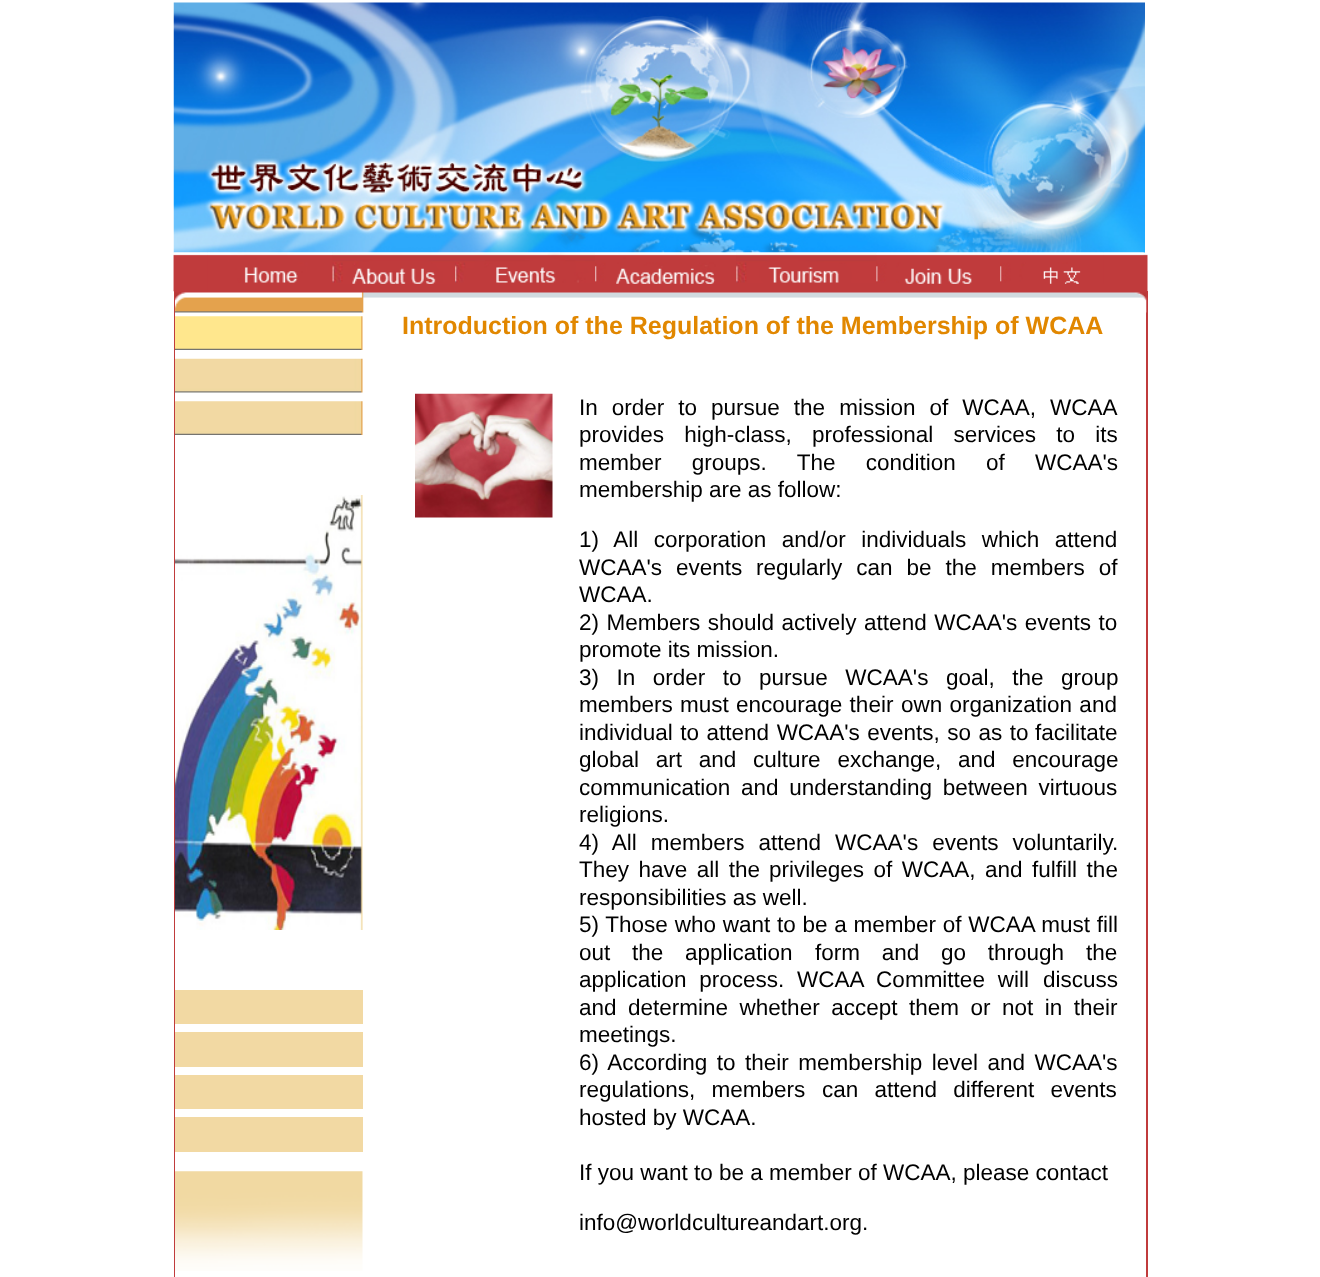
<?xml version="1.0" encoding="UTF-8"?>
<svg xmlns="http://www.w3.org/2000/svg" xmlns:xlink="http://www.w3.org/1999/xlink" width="1320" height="1277">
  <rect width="100%" height="100%" fill="#ffffff" />
  <image x="173" y="2" width="972" height="251" xlink:href="image1.png" />
  <image x="173" y="254" width="975" height="38" xlink:href="image2.png" />
  <rect x="174" y="291" width="974" height="986" fill="#c03b3c" />
  <image x="173" y="252" width="35" height="40" xlink:href="image3.png" />
  <image x="207" y="252" width="126" height="31" xlink:href="image4.png" />
  <image x="332" y="252" width="123" height="32" xlink:href="image5.png" />
  <image x="455" y="252" width="140" height="31" xlink:href="image6.png" />
  <image x="595" y="252" width="142" height="32" xlink:href="image7.png" />
  <image x="736" y="252" width="141" height="31" xlink:href="image8.png" />
  <image x="876" y="252" width="124" height="32" xlink:href="image9.png" />
  <image x="1000" y="252" width="104" height="32" xlink:href="image10.png" />
  <image x="1103" y="252" width="41" height="4" xlink:href="image11.png" />
  <rect x="175" y="312" width="971" height="965" fill="#ffffff" />
  <image x="175" y="292" width="972" height="21" xlink:href="image12.png" />
  <image x="175" y="316" width="188" height="34" xlink:href="image13.png" />
  <image x="175" y="358" width="188" height="35" xlink:href="image14.png" />
  <image x="175" y="401" width="188" height="34" xlink:href="image15.png" />
  <image x="175" y="495" width="188" height="435" xlink:href="image16.png" />
  <rect x="175" y="990" width="188" height="34" fill="#f2d9a3" />
  <rect x="175" y="1032" width="188" height="35" fill="#f2d9a3" />
  <rect x="175" y="1075" width="188" height="34" fill="#f2d9a3" />
  <rect x="175" y="1117" width="188" height="35" fill="#f2d9a3" />
  <image x="175" y="1171" width="188" height="100" xlink:href="image17.png" />
  <image x="415" y="393" width="138" height="125" xlink:href="image18.png" />
  <text x="402" y="334" style="font-family: Liberation Sans; font-size: 25px; font-weight: bold; fill: #e18700">Introduction of the Regulation of the Membership of WCAA</text>
  <text x="579" y="415" word-spacing="7.75" style="font-family: Liberation Sans; font-size: 22.5px; fill: #000000">In order to pursue the mission of WCAA, WCAA</text>
  <text x="579" y="442" word-spacing="14" style="font-family: Liberation Sans; font-size: 22.5px; fill: #000000">provides high-class,</text>
  <text x="812" y="442" word-spacing="14" style="font-family: Liberation Sans; font-size: 22.5px; fill: #000000">professional services to its</text>
  <text x="579" y="470" word-spacing="24" style="font-family: Liberation Sans; font-size: 22.5px; fill: #000000">member groups. The condition of WCAA's</text>
  <text x="579" y="497" style="font-family: Liberation Sans; font-size: 22.5px; fill: #000000">membership are as follow:</text>
  <text x="579" y="547" word-spacing="9.25" style="font-family: Liberation Sans; font-size: 22.5px; fill: #000000">1) All corporation and/or individuals which attend</text>
  <text x="579" y="575" word-spacing="7.75" style="font-family: Liberation Sans; font-size: 22.5px; fill: #000000">WCAA's events</text>
  <text x="756" y="575" word-spacing="7.75" style="font-family: Liberation Sans; font-size: 22.5px; fill: #000000">regularly can be the members of</text>
  <text x="579" y="602" style="font-family: Liberation Sans; font-size: 22.5px; fill: #000000">WCAA.</text>
  <text x="579" y="630" word-spacing="1.25" style="font-family: Liberation Sans; font-size: 22.5px; fill: #000000">2) Members should actively attend WCAA's events to</text>
  <text x="579" y="657" style="font-family: Liberation Sans; font-size: 22.5px; fill: #000000">promote its mission.</text>
  <text x="579" y="685" word-spacing="11.25" style="font-family: Liberation Sans; font-size: 22.5px; fill: #000000">3) In order to pursue WCAA's goal, the group</text>
  <text x="579" y="712" word-spacing="1" style="font-family: Liberation Sans; font-size: 22.5px; fill: #000000">members must encourage their</text>
  <text x="901" y="712" word-spacing="1" style="font-family: Liberation Sans; font-size: 22.5px; fill: #000000">own organization and</text>
  <text x="579" y="740" word-spacing="1.25" style="font-family: Liberation Sans; font-size: 22.5px; fill: #000000">individual to attend WCAA's events, so as to</text>
  <text x="1035" y="740" style="font-family: Liberation Sans; font-size: 22.5px; fill: #000000">facilitate</text>
  <text x="579" y="767" word-spacing="10.5" style="font-family: Liberation Sans; font-size: 22.5px; fill: #000000">global art and culture exchange, and encourage</text>
  <text x="579" y="795" style="font-family: Liberation Sans; font-size: 22.5px; fill: #000000">communication</text>
  <text x="741" y="795" word-spacing="4.5" style="font-family: Liberation Sans; font-size: 22.5px; fill: #000000">and understanding between virtuous</text>
  <text x="579" y="822" style="font-family: Liberation Sans; font-size: 22.5px; fill: #000000">religions.</text>
  <text x="579" y="850" word-spacing="7.75" style="font-family: Liberation Sans; font-size: 22.5px; fill: #000000">4) All members attend WCAA's events voluntarily.</text>
  <text x="579" y="877" word-spacing="3.25" style="font-family: Liberation Sans; font-size: 22.5px; fill: #000000">They have all the</text>
  <text x="769" y="877" word-spacing="3.25" style="font-family: Liberation Sans; font-size: 22.5px; fill: #000000">privileges of WCAA, and fulfill the</text>
  <text x="579" y="905" style="font-family: Liberation Sans; font-size: 22.5px; fill: #000000">responsibilities as well.</text>
  <text x="579" y="932" word-spacing="0.5" style="font-family: Liberation Sans; font-size: 22.5px; fill: #000000">5) Those who want to be a member of WCAA must fill</text>
  <text x="579" y="960" word-spacing="15.5" style="font-family: Liberation Sans; font-size: 22.5px; fill: #000000">out the application</text>
  <text x="815" y="960" word-spacing="15.5" style="font-family: Liberation Sans; font-size: 22.5px; fill: #000000">form and go through the</text>
  <text x="579" y="987" word-spacing="6.5" style="font-family: Liberation Sans; font-size: 22.5px; fill: #000000">application process. WCAA Committee will</text>
  <text x="1043" y="987" style="font-family: Liberation Sans; font-size: 22.5px; fill: #000000">discuss</text>
  <text x="579" y="1015" word-spacing="5.25" style="font-family: Liberation Sans; font-size: 22.5px; fill: #000000">and determine whether accept them or not in their</text>
  <text x="579" y="1042" style="font-family: Liberation Sans; font-size: 22.5px; fill: #000000">meetings.</text>
  <text x="579" y="1070" word-spacing="3.25" style="font-family: Liberation Sans; font-size: 22.5px; fill: #000000">6) According to their membership level and WCAA's</text>
  <text x="579" y="1097" word-spacing="10" style="font-family: Liberation Sans; font-size: 22.5px; fill: #000000">regulations, members</text>
  <text x="822" y="1097" word-spacing="10" style="font-family: Liberation Sans; font-size: 22.5px; fill: #000000">can attend different events</text>
  <text x="579" y="1125" style="font-family: Liberation Sans; font-size: 22.5px; fill: #000000">hosted by WCAA.</text>
  <text x="579" y="1180" style="font-family: Liberation Sans; font-size: 22.5px; fill: #000000">If you want to be a member of WCAA, please contact</text>
  <text x="579" y="1230" style="font-family: Liberation Sans; font-size: 22.5px; fill: #000000">info@worldcultureandart.org.</text>
</svg>
